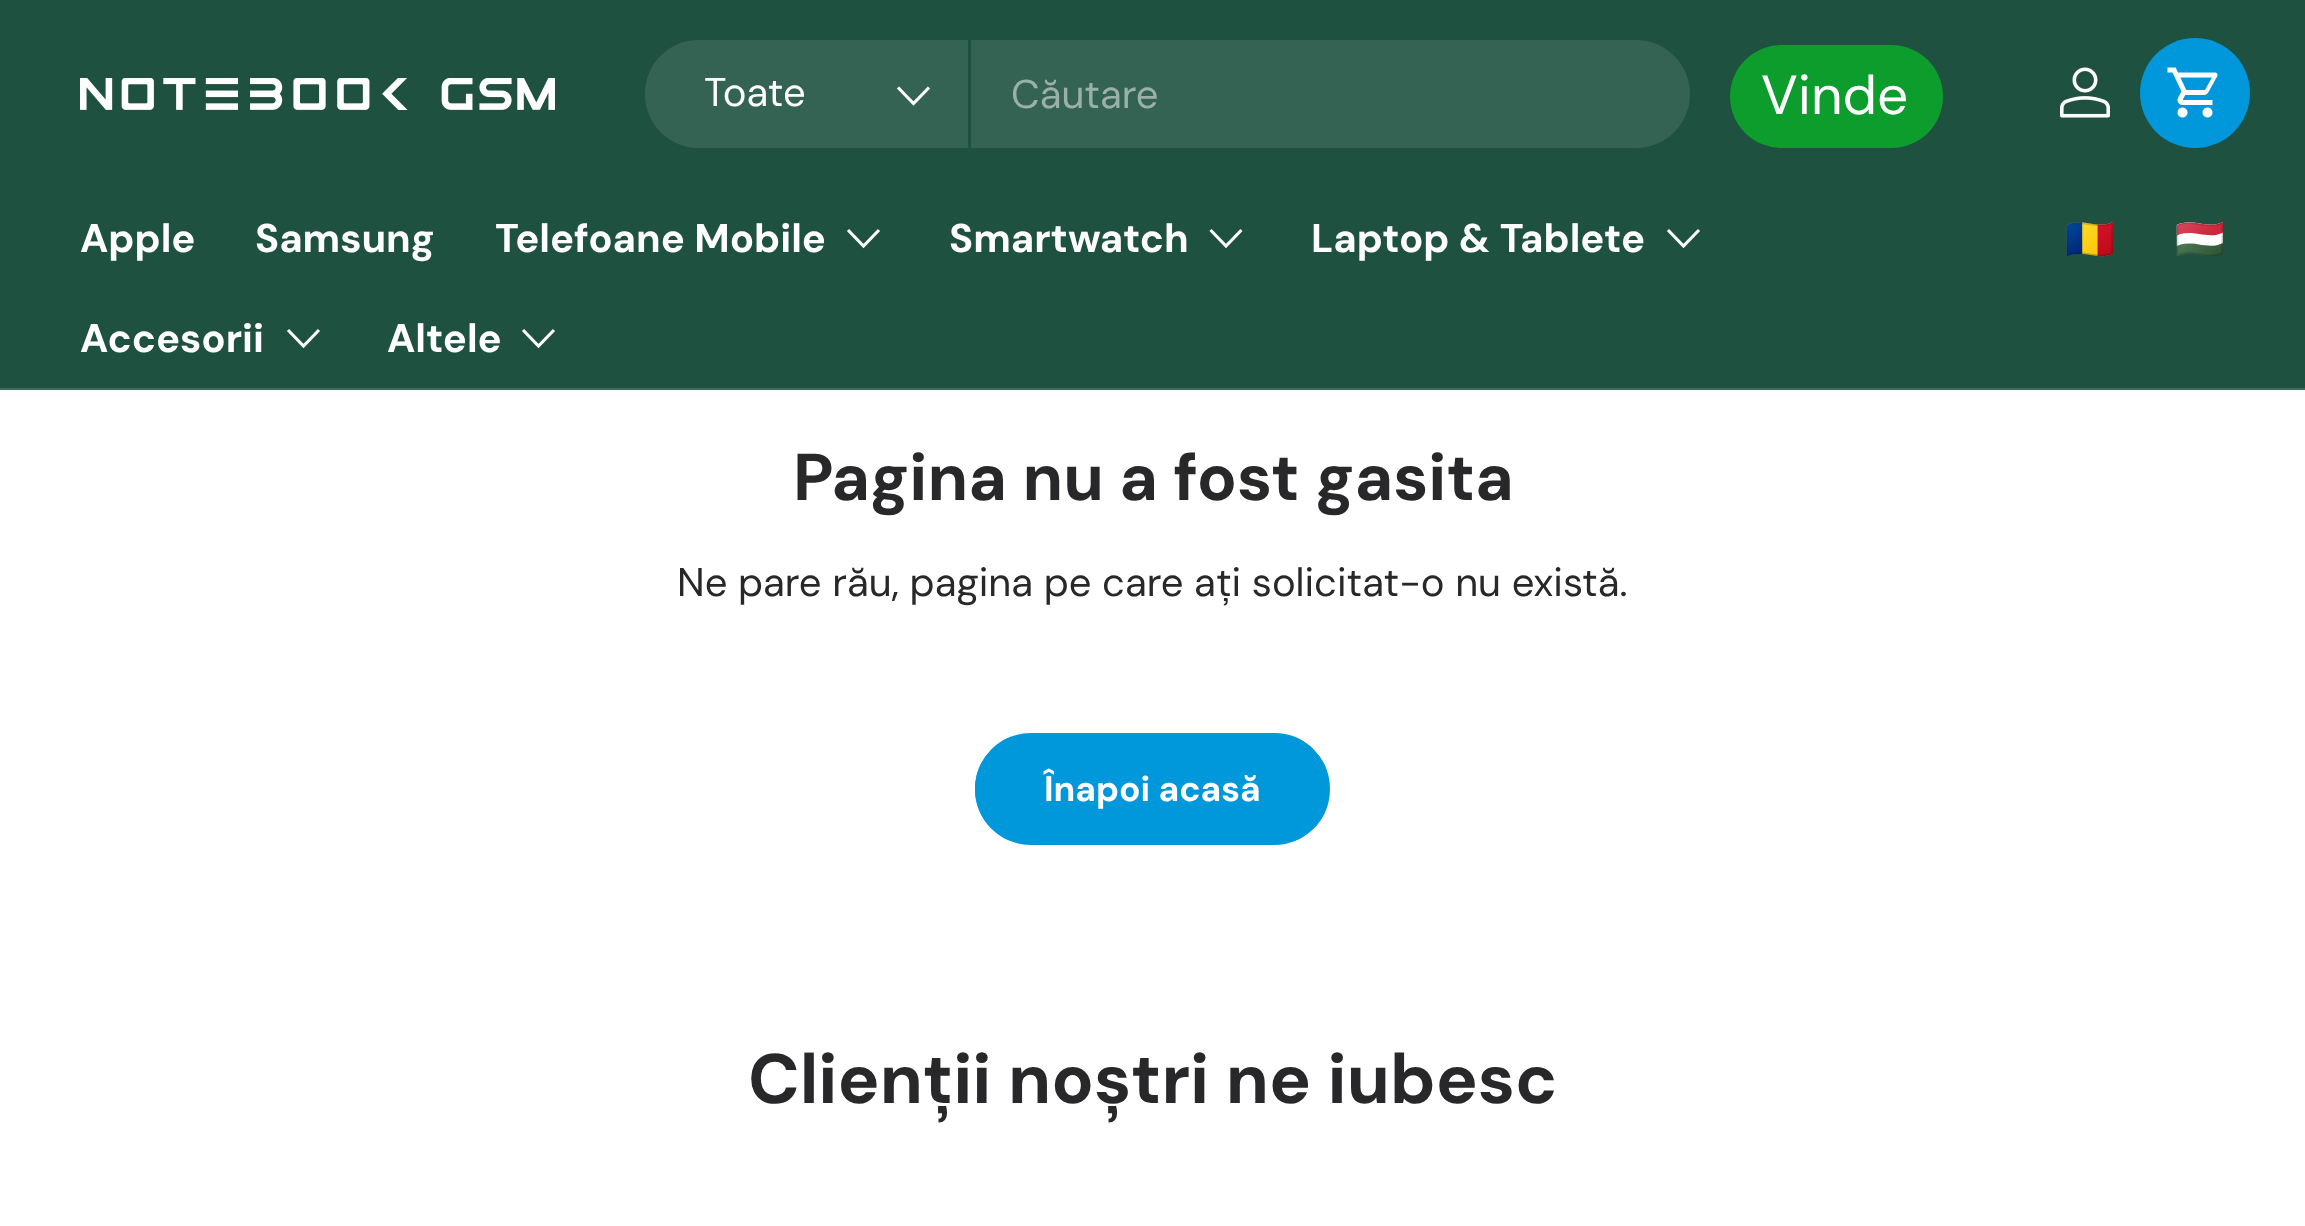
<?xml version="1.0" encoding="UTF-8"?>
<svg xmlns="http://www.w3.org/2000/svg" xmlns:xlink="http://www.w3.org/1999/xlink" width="2305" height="1226">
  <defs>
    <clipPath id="clip1"><rect x="975" y="733" width="355" height="112" rx="56" /></clipPath>
    <linearGradient id="g1" gradientUnits="userSpaceOnUse" x1="308" y1="664" x2="1307" y2="913"><stop offset="0.6" stop-color="#33ace2" /><stop offset="0.6" stop-color="#0098db" /><stop offset="1" stop-color="#0098db" /></linearGradient>
  </defs>
  <rect width="100%" height="100%" fill="#ffffff" />
  <rect width="2305" height="390" fill="#1e5140" />
  <rect y="388" width="2305" height="2" fill="#ffffff" fill-opacity="0.15" />
  <image x="80" y="78" width="475" height="32" xlink:href="image1.png" />
  <rect x="645" y="40" width="1045" height="108" rx="54" fill="#346253" />
  <path d="M 699 40 h 271 v 108 h -271 c -30 0 -54 -24 -54 -54 c 0 -30 24 -54 54 -54 z" fill="#346253" />
  <rect x="968" y="40" width="3" height="108" fill="#1e5140" />
  <path d="M 929 87.5 l -15.5 16 l -15.5 -16" fill="none" stroke="#ffffff" stroke-width="3.1" />
  <rect x="1730" y="45" width="213" height="103" rx="51.5" fill="#0c9d2d" />
  <image x="2060" y="67" width="50" height="51" xlink:href="image2.png" />
  <circle cx="2195" cy="93" r="55" fill="#0098db" />
  <image x="2167" y="67" width="51" height="51" xlink:href="image3.png" />
  <path d="M 879 230 l -15.5 16 l -15.5 -16" fill="none" stroke="#ffffff" stroke-width="3.1" />
  <path d="M 1241.5 230 l -15.5 16 l -15.5 -16" fill="none" stroke="#ffffff" stroke-width="3.1" />
  <path d="M 1699 230 l -15.5 16 l -15.5 -16" fill="none" stroke="#ffffff" stroke-width="3.1" />
  <path d="M 319 330 l -15.5 16 l -15.5 -16" fill="none" stroke="#ffffff" stroke-width="3.1" />
  <path d="M 554 330 l -15.5 16 l -15.5 -16" fill="none" stroke="#ffffff" stroke-width="3.1" />
  <g clip-path="url(#clip1)">
    <rect x="975" y="738" width="350" height="102" fill="url(#g1)" />
  </g>
  <rect x="977.5" y="735.5" width="350" height="107" rx="53.5" fill="none" stroke="#0098db" stroke-width="5" />
  <text x="704" y="106" style="font-family: DM Sans; font-size: 40px; fill: #ffffff">Toate</text>
  <text x="1011" y="108" style="font-family: DM Sans; font-size: 40px; fill: #9ab1a9">Căutare</text>
  <text x="1761" y="114" style="font-family: DM Sans; font-size: 55px; fill: #ffffff">Vinde</text>
  <text x="80" y="252" style="font-family: DM Sans; font-size: 40px; font-weight: bold; fill: #ffffff">Apple</text>
  <text x="255" y="252" style="font-family: DM Sans; font-size: 40px; font-weight: bold; fill: #ffffff">Samsung</text>
  <text x="495" y="252" style="font-family: DM Sans; font-size: 40px; font-weight: bold; fill: #ffffff">Telefoane Mobile</text>
  <text x="949" y="252" style="font-family: DM Sans; font-size: 40px; font-weight: bold; fill: #ffffff">Smartwatch</text>
  <text x="1311" y="252" style="font-family: DM Sans; font-size: 40px; font-weight: bold; fill: #ffffff">Laptop &amp; Tablete</text>
  <text x="80" y="352" style="font-family: DM Sans; font-size: 40px; font-weight: bold; fill: #ffffff">Accesorii</text>
  <text x="387" y="352" style="font-family: DM Sans; font-size: 40px; font-weight: bold; fill: #ffffff">Altele</text>
  <text x="2065" y="253" style="font-family: Noto Color Emoji; font-size: 40px; font-weight: bold; fill: #a5b9b3">🇷🇴</text>
  <text x="2175" y="253" style="font-family: Noto Color Emoji; font-size: 40px; font-weight: bold; fill: #a5b9b3">🇭🇺</text>
  <text x="793" y="500" style="font-family: DM Sans; font-size: 66px; font-weight: bold; fill: #282729">Pagina nu a fost gasita</text>
  <text x="677" y="596" style="font-family: DM Sans; font-size: 40px; fill: #282729">Ne pare rău, pagina pe care ați solicitat-o nu există.</text>
  <text x="1044" y="801" style="font-family: DM Sans; font-size: 35.25px; font-weight: bold; fill: #ffffff">Înapoi acasă</text>
  <text x="748" y="1103" style="font-family: DM Sans; font-size: 70px; font-weight: bold; fill: #282729">Clienții noștri ne iubesc</text>
</svg>
